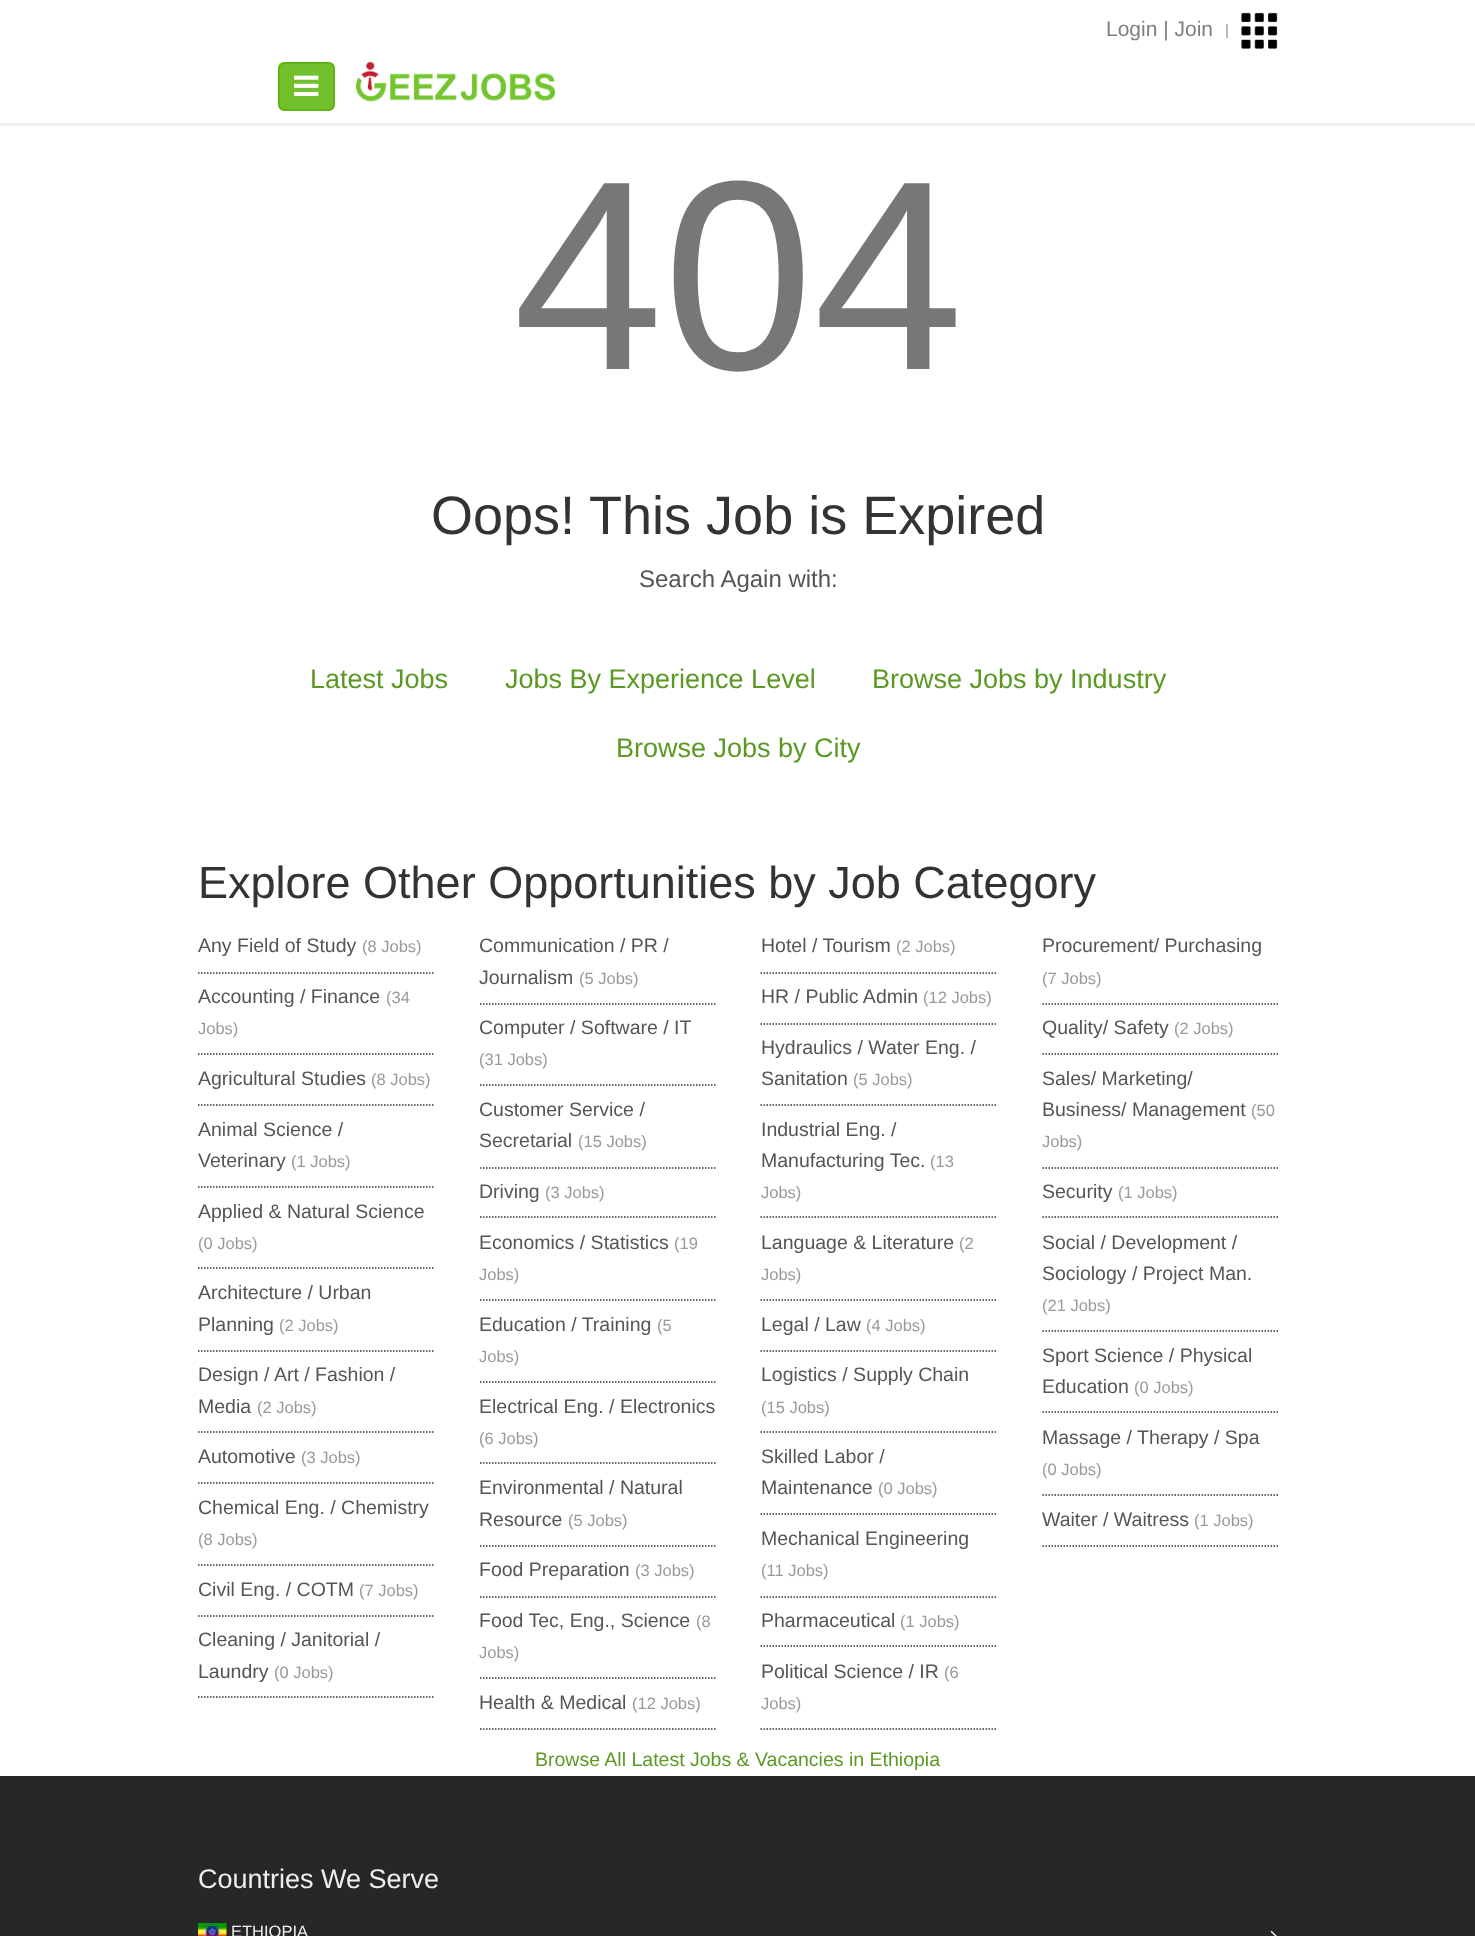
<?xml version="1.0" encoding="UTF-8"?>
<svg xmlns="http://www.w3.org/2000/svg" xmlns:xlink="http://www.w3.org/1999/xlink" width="1475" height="1936">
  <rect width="100%" height="100%" fill="#ffffff" />
  <rect y="123" width="1475" height="3" fill="#eeeeee" />
  <rect x="1226" y="24" width="2" height="14" fill="#bbbbbb" />
  <image x="1241" y="12" width="37" height="37" xlink:href="image1.png" />
  <rect x="279" y="63" width="55" height="47" rx="5" fill="#72c02c" stroke="#5fb611" stroke-width="2" />
  <image x="294" y="75" width="25" height="21" xlink:href="image2.png" />
  <image x="355" y="61" width="201" height="41" xlink:href="image3.png" />
  <path d="M 198 973 h 237" fill="none" stroke="#333333" stroke-width="1.5" stroke-dasharray="1.5 1.5" />
  <path d="M 198 1054 h 237" fill="none" stroke="#333333" stroke-width="1.5" stroke-dasharray="1.5 1.5" />
  <path d="M 198 1105 h 237" fill="none" stroke="#333333" stroke-width="1.5" stroke-dasharray="1.5 1.5" />
  <path d="M 198 1187 h 237" fill="none" stroke="#333333" stroke-width="1.5" stroke-dasharray="1.5 1.5" />
  <path d="M 198 1268 h 237" fill="none" stroke="#333333" stroke-width="1.5" stroke-dasharray="1.5 1.5" />
  <path d="M 198 1351 h 237" fill="none" stroke="#333333" stroke-width="1.5" stroke-dasharray="1.5 1.5" />
  <path d="M 198 1432 h 237" fill="none" stroke="#333333" stroke-width="1.5" stroke-dasharray="1.5 1.5" />
  <path d="M 198 1483 h 237" fill="none" stroke="#333333" stroke-width="1.5" stroke-dasharray="1.5 1.5" />
  <path d="M 198 1565 h 237" fill="none" stroke="#333333" stroke-width="1.5" stroke-dasharray="1.5 1.5" />
  <path d="M 198 1616 h 237" fill="none" stroke="#333333" stroke-width="1.5" stroke-dasharray="1.5 1.5" />
  <path d="M 198 1697 h 237" fill="none" stroke="#333333" stroke-width="1.5" stroke-dasharray="1.5 1.5" />
  <path d="M 480 1004 h 235.5" fill="none" stroke="#333333" stroke-width="1.5" stroke-dasharray="1.5 1.5" />
  <path d="M 480 1085 h 235.5" fill="none" stroke="#333333" stroke-width="1.5" stroke-dasharray="1.5 1.5" />
  <path d="M 480 1168 h 235.5" fill="none" stroke="#333333" stroke-width="1.5" stroke-dasharray="1.5 1.5" />
  <path d="M 480 1217 h 235.5" fill="none" stroke="#333333" stroke-width="1.5" stroke-dasharray="1.5 1.5" />
  <path d="M 480 1300 h 235.5" fill="none" stroke="#333333" stroke-width="1.5" stroke-dasharray="1.5 1.5" />
  <path d="M 480 1382 h 235.5" fill="none" stroke="#333333" stroke-width="1.5" stroke-dasharray="1.5 1.5" />
  <path d="M 480 1463 h 235.5" fill="none" stroke="#333333" stroke-width="1.5" stroke-dasharray="1.5 1.5" />
  <path d="M 480 1546 h 235.5" fill="none" stroke="#333333" stroke-width="1.5" stroke-dasharray="1.5 1.5" />
  <path d="M 480 1597 h 235.5" fill="none" stroke="#333333" stroke-width="1.5" stroke-dasharray="1.5 1.5" />
  <path d="M 480 1678 h 235.5" fill="none" stroke="#333333" stroke-width="1.5" stroke-dasharray="1.5 1.5" />
  <path d="M 480 1729 h 235.5" fill="none" stroke="#333333" stroke-width="1.5" stroke-dasharray="1.5 1.5" />
  <path d="M 760.5 973 h 237" fill="none" stroke="#333333" stroke-width="1.5" stroke-dasharray="1.5 1.5" />
  <path d="M 760.5 1024 h 237" fill="none" stroke="#333333" stroke-width="1.5" stroke-dasharray="1.5 1.5" />
  <path d="M 760.5 1105 h 237" fill="none" stroke="#333333" stroke-width="1.5" stroke-dasharray="1.5 1.5" />
  <path d="M 760.5 1217 h 237" fill="none" stroke="#333333" stroke-width="1.5" stroke-dasharray="1.5 1.5" />
  <path d="M 760.5 1300 h 237" fill="none" stroke="#333333" stroke-width="1.5" stroke-dasharray="1.5 1.5" />
  <path d="M 760.5 1351 h 237" fill="none" stroke="#333333" stroke-width="1.5" stroke-dasharray="1.5 1.5" />
  <path d="M 760.5 1432 h 237" fill="none" stroke="#333333" stroke-width="1.5" stroke-dasharray="1.5 1.5" />
  <path d="M 760.5 1514 h 237" fill="none" stroke="#333333" stroke-width="1.5" stroke-dasharray="1.5 1.5" />
  <path d="M 760.5 1597 h 237" fill="none" stroke="#333333" stroke-width="1.5" stroke-dasharray="1.5 1.5" />
  <path d="M 760.5 1646 h 237" fill="none" stroke="#333333" stroke-width="1.5" stroke-dasharray="1.5 1.5" />
  <path d="M 760.5 1729 h 237" fill="none" stroke="#333333" stroke-width="1.5" stroke-dasharray="1.5 1.5" />
  <path d="M 1042.5 1004 h 235.5" fill="none" stroke="#333333" stroke-width="1.5" stroke-dasharray="1.5 1.5" />
  <path d="M 1042.5 1054 h 235.5" fill="none" stroke="#333333" stroke-width="1.5" stroke-dasharray="1.5 1.5" />
  <path d="M 1042.5 1168 h 235.5" fill="none" stroke="#333333" stroke-width="1.5" stroke-dasharray="1.5 1.5" />
  <path d="M 1042.5 1217 h 235.5" fill="none" stroke="#333333" stroke-width="1.5" stroke-dasharray="1.5 1.5" />
  <path d="M 1042.5 1331 h 235.5" fill="none" stroke="#333333" stroke-width="1.5" stroke-dasharray="1.5 1.5" />
  <path d="M 1042.5 1412 h 235.5" fill="none" stroke="#333333" stroke-width="1.5" stroke-dasharray="1.5 1.5" />
  <path d="M 1042.5 1495 h 235.5" fill="none" stroke="#333333" stroke-width="1.5" stroke-dasharray="1.5 1.5" />
  <path d="M 1042.5 1546 h 235.5" fill="none" stroke="#333333" stroke-width="1.5" stroke-dasharray="1.5 1.5" />
  <rect y="1776" width="1475" height="160" fill="#272727" />
  <image x="198" y="1923" width="29" height="13" xlink:href="image4.png" />
  <image x="1270" y="1930" width="7" height="6" xlink:href="image5.png" />
  <text x="1106" y="36" style="font-family: Liberation Sans; font-size: 21px; fill: #7c8082">Login | Join</text>
  <text x="513" y="369" style="font-family: Liberation Sans; font-size: 270px; fill: #777777">404</text>
  <text x="431" y="534" style="font-family: Liberation Sans; font-size: 54px; fill: #333333">Oops! This Job is Expired</text>
  <text x="639" y="587" style="font-family: Liberation Sans; font-size: 24px; fill: #555555">Search Again with:</text>
  <text x="310" y="688" style="font-family: Liberation Sans; font-size: 27px; fill: #5a9922">Latest Jobs</text>
  <text x="505" y="688" style="font-family: Liberation Sans; font-size: 27px; fill: #5a9922">Jobs By Experience Level</text>
  <text x="872" y="688" style="font-family: Liberation Sans; font-size: 27px; fill: #5a9922">Browse Jobs by Industry</text>
  <text x="616" y="757" style="font-family: Liberation Sans; font-size: 27px; fill: #5a9922">Browse Jobs by City</text>
  <text x="198" y="898" style="font-family: Liberation Sans; font-size: 45px; fill: #333333">Explore Other Opportunities by Job Category</text>
  <text x="198" y="952" style="font-family: Liberation Sans; font-size: 19.5px; fill: #555555">Any Field of Study</text>
  <text x="362" y="952" style="font-family: Liberation Sans; font-size: 16.5px; fill: #999999">(8 Jobs)</text>
  <text x="198" y="1003" style="font-family: Liberation Sans; font-size: 19.5px; fill: #555555">Accounting / Finance</text>
  <text x="386" y="1003" style="font-family: Liberation Sans; font-size: 16.5px; fill: #999999">(34</text>
  <text x="198" y="1034" style="font-family: Liberation Sans; font-size: 16.5px; fill: #999999">Jobs)</text>
  <text x="198" y="1085" style="font-family: Liberation Sans; font-size: 19.5px; fill: #555555">Agricultural Studies</text>
  <text x="371" y="1085" style="font-family: Liberation Sans; font-size: 16.5px; fill: #999999">(8 Jobs)</text>
  <text x="198" y="1136" style="font-family: Liberation Sans; font-size: 19.5px; fill: #555555">Animal Science /</text>
  <text x="198" y="1167" style="font-family: Liberation Sans; font-size: 19.5px; fill: #555555">Veterinary</text>
  <text x="291" y="1167" style="font-family: Liberation Sans; font-size: 16.5px; fill: #999999">(1 Jobs)</text>
  <text x="198" y="1218" style="font-family: Liberation Sans; font-size: 19.5px; fill: #555555">Applied &amp; Natural Science</text>
  <text x="198" y="1249" style="font-family: Liberation Sans; font-size: 16.5px; fill: #999999">(0 Jobs)</text>
  <text x="198" y="1299" style="font-family: Liberation Sans; font-size: 19.5px; fill: #555555">Architecture / Urban</text>
  <text x="198" y="1331" style="font-family: Liberation Sans; font-size: 19.5px; fill: #555555">Planning</text>
  <text x="279" y="1331" style="font-family: Liberation Sans; font-size: 16.5px; fill: #999999">(2 Jobs)</text>
  <text x="198" y="1381" style="font-family: Liberation Sans; font-size: 19.5px; fill: #555555">Design / Art / Fashion /</text>
  <text x="198" y="1413" style="font-family: Liberation Sans; font-size: 19.5px; fill: #555555">Media</text>
  <text x="257" y="1413" style="font-family: Liberation Sans; font-size: 16.5px; fill: #999999">(2 Jobs)</text>
  <text x="198" y="1463" style="font-family: Liberation Sans; font-size: 19.5px; fill: #555555">Automotive</text>
  <text x="301" y="1463" style="font-family: Liberation Sans; font-size: 16.5px; fill: #999999">(3 Jobs)</text>
  <text x="198" y="1514" style="font-family: Liberation Sans; font-size: 19.5px; fill: #555555">Chemical Eng. / Chemistry</text>
  <text x="198" y="1545" style="font-family: Liberation Sans; font-size: 16.5px; fill: #999999">(8 Jobs)</text>
  <text x="198" y="1596" style="font-family: Liberation Sans; font-size: 19.5px; fill: #555555">Civil Eng. / COTM</text>
  <text x="359" y="1596" style="font-family: Liberation Sans; font-size: 16.5px; fill: #999999">(7 Jobs)</text>
  <text x="198" y="1646" style="font-family: Liberation Sans; font-size: 19.5px; fill: #555555">Cleaning / Janitorial /</text>
  <text x="198" y="1678" style="font-family: Liberation Sans; font-size: 19.5px; fill: #555555">Laundry</text>
  <text x="274" y="1678" style="font-family: Liberation Sans; font-size: 16.5px; fill: #999999">(0 Jobs)</text>
  <text x="479" y="952" style="font-family: Liberation Sans; font-size: 19.5px; fill: #555555">Communication / PR /</text>
  <text x="479" y="984" style="font-family: Liberation Sans; font-size: 19.5px; fill: #555555">Journalism</text>
  <text x="579" y="984" style="font-family: Liberation Sans; font-size: 16.5px; fill: #999999">(5 Jobs)</text>
  <text x="479" y="1034" style="font-family: Liberation Sans; font-size: 19.5px; fill: #555555">Computer / Software / IT</text>
  <text x="479" y="1065" style="font-family: Liberation Sans; font-size: 16.5px; fill: #999999">(31 Jobs)</text>
  <text x="479" y="1116" style="font-family: Liberation Sans; font-size: 19.5px; fill: #555555">Customer Service /</text>
  <text x="479" y="1147" style="font-family: Liberation Sans; font-size: 19.5px; fill: #555555">Secretarial</text>
  <text x="578" y="1147" style="font-family: Liberation Sans; font-size: 16.5px; fill: #999999">(15 Jobs)</text>
  <text x="479" y="1198" style="font-family: Liberation Sans; font-size: 19.5px; fill: #555555">Driving</text>
  <text x="545" y="1198" style="font-family: Liberation Sans; font-size: 16.5px; fill: #999999">(3 Jobs)</text>
  <text x="479" y="1249" style="font-family: Liberation Sans; font-size: 19.5px; fill: #555555">Economics / Statistics</text>
  <text x="674" y="1249" style="font-family: Liberation Sans; font-size: 16.5px; fill: #999999">(19</text>
  <text x="479" y="1280" style="font-family: Liberation Sans; font-size: 16.5px; fill: #999999">Jobs)</text>
  <text x="479" y="1331" style="font-family: Liberation Sans; font-size: 19.5px; fill: #555555">Education / Training</text>
  <text x="657" y="1331" style="font-family: Liberation Sans; font-size: 16.5px; fill: #999999">(5</text>
  <text x="479" y="1362" style="font-family: Liberation Sans; font-size: 16.5px; fill: #999999">Jobs)</text>
  <text x="479" y="1413" style="font-family: Liberation Sans; font-size: 19.5px; fill: #555555">Electrical Eng. / Electronics</text>
  <text x="479" y="1444" style="font-family: Liberation Sans; font-size: 16.5px; fill: #999999">(6 Jobs)</text>
  <text x="479" y="1494" style="font-family: Liberation Sans; font-size: 19.5px; fill: #555555">Environmental / Natural</text>
  <text x="479" y="1526" style="font-family: Liberation Sans; font-size: 19.5px; fill: #555555">Resource</text>
  <text x="568" y="1526" style="font-family: Liberation Sans; font-size: 16.5px; fill: #999999">(5 Jobs)</text>
  <text x="479" y="1576" style="font-family: Liberation Sans; font-size: 19.5px; fill: #555555">Food Preparation</text>
  <text x="635" y="1576" style="font-family: Liberation Sans; font-size: 16.5px; fill: #999999">(3 Jobs)</text>
  <text x="479" y="1627" style="font-family: Liberation Sans; font-size: 19.5px; fill: #555555">Food Tec, Eng., Science</text>
  <text x="696" y="1627" style="font-family: Liberation Sans; font-size: 16.5px; fill: #999999">(8</text>
  <text x="479" y="1658" style="font-family: Liberation Sans; font-size: 16.5px; fill: #999999">Jobs)</text>
  <text x="479" y="1709" style="font-family: Liberation Sans; font-size: 19.5px; fill: #555555">Health &amp; Medical</text>
  <text x="632" y="1709" style="font-family: Liberation Sans; font-size: 16.5px; fill: #999999">(12 Jobs)</text>
  <text x="761" y="952" style="font-family: Liberation Sans; font-size: 19.5px; fill: #555555">Hotel / Tourism</text>
  <text x="896" y="952" style="font-family: Liberation Sans; font-size: 16.5px; fill: #999999">(2 Jobs)</text>
  <text x="761" y="1003" style="font-family: Liberation Sans; font-size: 19.5px; fill: #555555">HR / Public Admin</text>
  <text x="923" y="1003" style="font-family: Liberation Sans; font-size: 16.5px; fill: #999999">(12 Jobs)</text>
  <text x="761" y="1054" style="font-family: Liberation Sans; font-size: 19.5px; fill: #555555">Hydraulics / Water Eng. /</text>
  <text x="761" y="1085" style="font-family: Liberation Sans; font-size: 19.5px; fill: #555555">Sanitation</text>
  <text x="853" y="1085" style="font-family: Liberation Sans; font-size: 16.5px; fill: #999999">(5 Jobs)</text>
  <text x="761" y="1136" style="font-family: Liberation Sans; font-size: 19.5px; fill: #555555">Industrial Eng. /</text>
  <text x="761" y="1167" style="font-family: Liberation Sans; font-size: 19.5px; fill: #555555">Manufacturing Tec.</text>
  <text x="930" y="1167" style="font-family: Liberation Sans; font-size: 16.5px; fill: #999999">(13</text>
  <text x="761" y="1198" style="font-family: Liberation Sans; font-size: 16.5px; fill: #999999">Jobs)</text>
  <text x="761" y="1249" style="font-family: Liberation Sans; font-size: 19.5px; fill: #555555">Language &amp; Literature</text>
  <text x="959" y="1249" style="font-family: Liberation Sans; font-size: 16.5px; fill: #999999">(2</text>
  <text x="761" y="1280" style="font-family: Liberation Sans; font-size: 16.5px; fill: #999999">Jobs)</text>
  <text x="761" y="1331" style="font-family: Liberation Sans; font-size: 19.5px; fill: #555555">Legal / Law</text>
  <text x="866" y="1331" style="font-family: Liberation Sans; font-size: 16.5px; fill: #999999">(4 Jobs)</text>
  <text x="761" y="1381" style="font-family: Liberation Sans; font-size: 19.5px; fill: #555555">Logistics / Supply Chain</text>
  <text x="761" y="1413" style="font-family: Liberation Sans; font-size: 16.5px; fill: #999999">(15 Jobs)</text>
  <text x="761" y="1463" style="font-family: Liberation Sans; font-size: 19.5px; fill: #555555">Skilled Labor /</text>
  <text x="761" y="1494" style="font-family: Liberation Sans; font-size: 19.5px; fill: #555555">Maintenance</text>
  <text x="878" y="1494" style="font-family: Liberation Sans; font-size: 16.5px; fill: #999999">(0 Jobs)</text>
  <text x="761" y="1545" style="font-family: Liberation Sans; font-size: 19.5px; fill: #555555">Mechanical Engineering</text>
  <text x="761" y="1576" style="font-family: Liberation Sans; font-size: 16.5px; fill: #999999">(11 Jobs)</text>
  <text x="761" y="1627" style="font-family: Liberation Sans; font-size: 19.5px; fill: #555555">Pharmaceutical</text>
  <text x="900" y="1627" style="font-family: Liberation Sans; font-size: 16.5px; fill: #999999">(1 Jobs)</text>
  <text x="761" y="1678" style="font-family: Liberation Sans; font-size: 19.5px; fill: #555555">Political Science / IR</text>
  <text x="944" y="1678" style="font-family: Liberation Sans; font-size: 16.5px; fill: #999999">(6</text>
  <text x="761" y="1709" style="font-family: Liberation Sans; font-size: 16.5px; fill: #999999">Jobs)</text>
  <text x="1042" y="952" style="font-family: Liberation Sans; font-size: 19.5px; fill: #555555">Procurement/ Purchasing</text>
  <text x="1042" y="984" style="font-family: Liberation Sans; font-size: 16.5px; fill: #999999">(7 Jobs)</text>
  <text x="1042" y="1034" style="font-family: Liberation Sans; font-size: 19.5px; fill: #555555">Quality/ Safety</text>
  <text x="1174" y="1034" style="font-family: Liberation Sans; font-size: 16.5px; fill: #999999">(2 Jobs)</text>
  <text x="1042" y="1085" style="font-family: Liberation Sans; font-size: 19.5px; fill: #555555">Sales/ Marketing/</text>
  <text x="1042" y="1116" style="font-family: Liberation Sans; font-size: 19.5px; fill: #555555">Business/ Management</text>
  <text x="1251" y="1116" style="font-family: Liberation Sans; font-size: 16.5px; fill: #999999">(50</text>
  <text x="1042" y="1147" style="font-family: Liberation Sans; font-size: 16.5px; fill: #999999">Jobs)</text>
  <text x="1042" y="1198" style="font-family: Liberation Sans; font-size: 19.5px; fill: #555555">Security</text>
  <text x="1118" y="1198" style="font-family: Liberation Sans; font-size: 16.5px; fill: #999999">(1 Jobs)</text>
  <text x="1042" y="1249" style="font-family: Liberation Sans; font-size: 19.5px; fill: #555555">Social / Development /</text>
  <text x="1042" y="1280" style="font-family: Liberation Sans; font-size: 19.5px; fill: #555555">Sociology / Project Man.</text>
  <text x="1042" y="1311" style="font-family: Liberation Sans; font-size: 16.5px; fill: #999999">(21 Jobs)</text>
  <text x="1042" y="1362" style="font-family: Liberation Sans; font-size: 19.5px; fill: #555555">Sport Science / Physical</text>
  <text x="1042" y="1393" style="font-family: Liberation Sans; font-size: 19.5px; fill: #555555">Education</text>
  <text x="1134" y="1393" style="font-family: Liberation Sans; font-size: 16.5px; fill: #999999">(0 Jobs)</text>
  <text x="1042" y="1444" style="font-family: Liberation Sans; font-size: 19.5px; fill: #555555">Massage / Therapy / Spa</text>
  <text x="1042" y="1475" style="font-family: Liberation Sans; font-size: 16.5px; fill: #999999">(0 Jobs)</text>
  <text x="1042" y="1526" style="font-family: Liberation Sans; font-size: 19.5px; fill: #555555">Waiter / Waitress</text>
  <text x="1194" y="1526" style="font-family: Liberation Sans; font-size: 16.5px; fill: #999999">(1 Jobs)</text>
  <text x="535" y="1766" style="font-family: Liberation Sans; font-size: 19.5px; fill: #5a9922">Browse All Latest Jobs &amp; Vacancies in Ethiopia</text>
  <text x="198" y="1888" style="font-family: Liberation Sans; font-size: 27px; fill: #eeeeee">Countries We Serve</text>
  <text x="231" y="1937" style="font-family: Liberation Sans; font-size: 16.5px; fill: #eeeeee">ETHIOPIA</text>
</svg>
